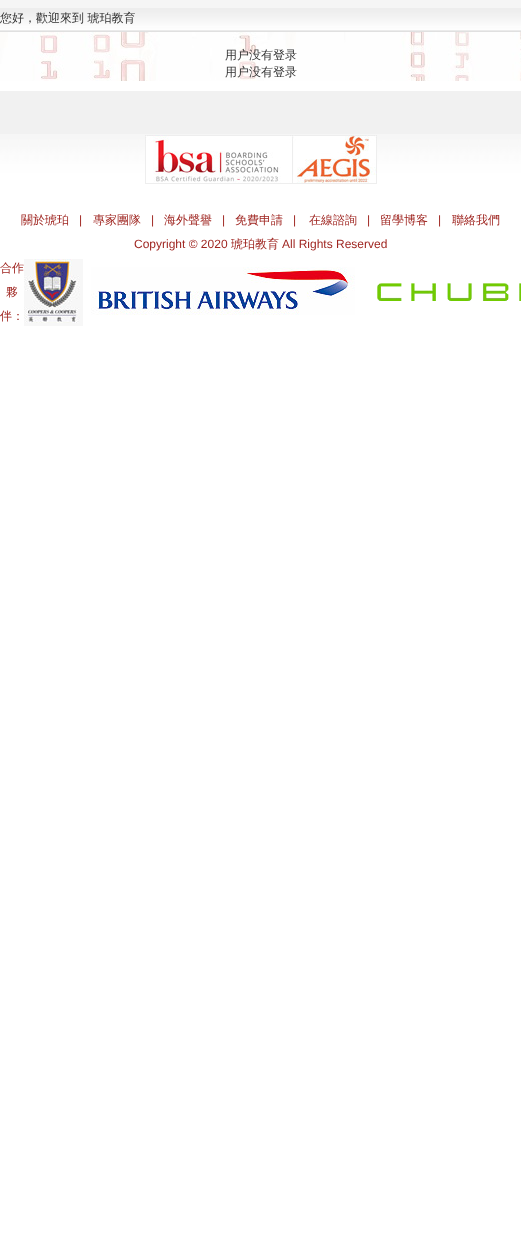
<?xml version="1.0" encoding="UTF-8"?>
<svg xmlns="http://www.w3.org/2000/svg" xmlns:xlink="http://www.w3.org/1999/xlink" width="521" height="1244">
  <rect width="100%" height="100%" fill="#ffffff" />
  <rect width="521" height="8" fill="#f5f5f5" />
  <image x="0" y="8" width="521" height="24" xlink:href="image1.png" />
  <image x="0" y="32" width="521" height="49" xlink:href="image2.png" />
  <rect y="91" width="521" height="43" fill="#f1f1f1" />
  <image x="0" y="134" width="521" height="77" xlink:href="image3.png" />
  <image x="145" y="135" width="232" height="49" xlink:href="image4.png" />
  <image x="24" y="259" width="59" height="67" xlink:href="image5.png" />
  <image x="91" y="267" width="264" height="48" xlink:href="image6.png" />
  <image x="377" y="283" width="144" height="18" xlink:href="image7.png" />
  <text x="0" y="22" style="font-family: WenQuanYi Zen Hei; font-size: 12px; font-weight: 500; fill: #333333">您好，歡迎來到 琥珀教育</text>
  <text x="225" y="59" style="font-family: WenQuanYi Zen Hei; font-size: 12px; font-weight: 500; fill: #333333">用户没有登录</text>
  <text x="225" y="76" style="font-family: WenQuanYi Zen Hei; font-size: 12px; font-weight: 500; fill: #333333">用户没有登录</text>
  <text x="21" y="224" style="font-family: WenQuanYi Zen Hei; font-size: 12px; font-weight: 500; fill: #9f2520">關於琥珀</text>
  <text x="79" y="224" style="font-family: Liberation Sans; font-size: 12px; fill: #9f2520">|</text>
  <text x="93" y="224" style="font-family: WenQuanYi Zen Hei; font-size: 12px; font-weight: 500; fill: #9f2520">專家團隊</text>
  <text x="151" y="224" style="font-family: Liberation Sans; font-size: 12px; fill: #9f2520">|</text>
  <text x="164" y="224" style="font-family: WenQuanYi Zen Hei; font-size: 12px; font-weight: 500; fill: #9f2520">海外聲譽</text>
  <text x="222" y="224" style="font-family: Liberation Sans; font-size: 12px; fill: #9f2520">|</text>
  <text x="235" y="224" style="font-family: WenQuanYi Zen Hei; font-size: 12px; font-weight: 500; fill: #9f2520">免費申請</text>
  <text x="293" y="224" style="font-family: Liberation Sans; font-size: 12px; fill: #9f2520">|</text>
  <text x="309" y="224" style="font-family: WenQuanYi Zen Hei; font-size: 12px; font-weight: 500; fill: #9f2520">在線諮詢</text>
  <text x="367" y="224" style="font-family: Liberation Sans; font-size: 12px; fill: #9f2520">|</text>
  <text x="380" y="224" style="font-family: WenQuanYi Zen Hei; font-size: 12px; font-weight: 500; fill: #9f2520">留學博客</text>
  <text x="438" y="224" style="font-family: Liberation Sans; font-size: 12px; fill: #9f2520">|</text>
  <text x="452" y="224" style="font-family: WenQuanYi Zen Hei; font-size: 12px; font-weight: 500; fill: #9f2520">聯絡我們</text>
  <text x="134" y="248" style="font-family: Liberation Sans; font-size: 12px; fill: #9f2520">Copyright © 2020</text>
  <text x="231" y="248" style="font-family: WenQuanYi Zen Hei; font-size: 12px; font-weight: 500; fill: #9f2520">琥珀教育</text>
  <text x="282" y="248" style="font-family: Liberation Sans; font-size: 12px; fill: #9f2520">All Rights Reserved</text>
  <text x="0" y="272" style="font-family: WenQuanYi Zen Hei; font-size: 12px; font-weight: 500; fill: #9f2520">合作</text>
  <text x="6" y="296" style="font-family: WenQuanYi Zen Hei; font-size: 12px; font-weight: 500; fill: #9f2520">夥</text>
  <text x="0" y="320" style="font-family: WenQuanYi Zen Hei; font-size: 12px; font-weight: 500; fill: #9f2520">伴：</text>
</svg>
